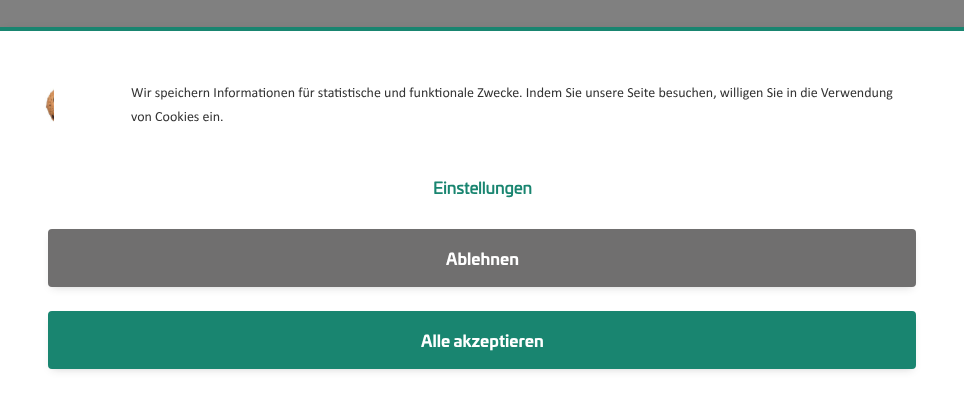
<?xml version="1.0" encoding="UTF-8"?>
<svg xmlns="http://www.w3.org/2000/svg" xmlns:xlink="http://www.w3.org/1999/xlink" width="964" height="406">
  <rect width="100%" height="100%" fill="#808080" />
  <rect x="5" y="32" width="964" height="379" fill="#000000" fill-opacity="0.19" filter="blur(5px)" />
  <rect y="31" width="964" height="375" fill="#ffffff" />
  <rect y="27" width="964" height="4" fill="#198570" />
  <image x="45" y="88" width="9" height="34" xlink:href="image1.png" />
  <rect x="52" y="237" width="860" height="50" fill="#1a1a1a" fill-opacity="0.2" filter="blur(4px)" />
  <rect x="49" y="230" width="866" height="56" rx="3" fill="#706f6f" stroke="#706f6f" stroke-width="2" />
  <rect x="52" y="319" width="860" height="50" fill="#1a1a1a" fill-opacity="0.2" filter="blur(4px)" />
  <rect x="49" y="312" width="866" height="56" rx="3" fill="#198570" stroke="#198570" stroke-width="2" />
  <text x="131" y="97" style="font-family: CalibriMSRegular; font-size: 14px; fill: #333333">Wir speichern Informationen für statistische und funktionale Zwecke. Indem Sie unsere Seite besuchen, willigen Sie in die Verwendung</text>
  <text x="131" y="121" style="font-family: CalibriMSRegular; font-size: 14px; fill: #333333">von Cookies ein.</text>
  <text x="433" y="194" style="font-family: 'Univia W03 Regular'; font-size: 16px; font-weight: bold; fill: #198570">Einstellungen</text>
  <text x="446" y="265" style="font-family: 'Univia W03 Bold'; font-size: 16px; font-weight: bold; fill: #ffffff">Ablehnen</text>
  <text x="421" y="347" style="font-family: 'Univia W03 Bold'; font-size: 16px; font-weight: bold; fill: #ffffff">Alle akzeptieren</text>
</svg>
